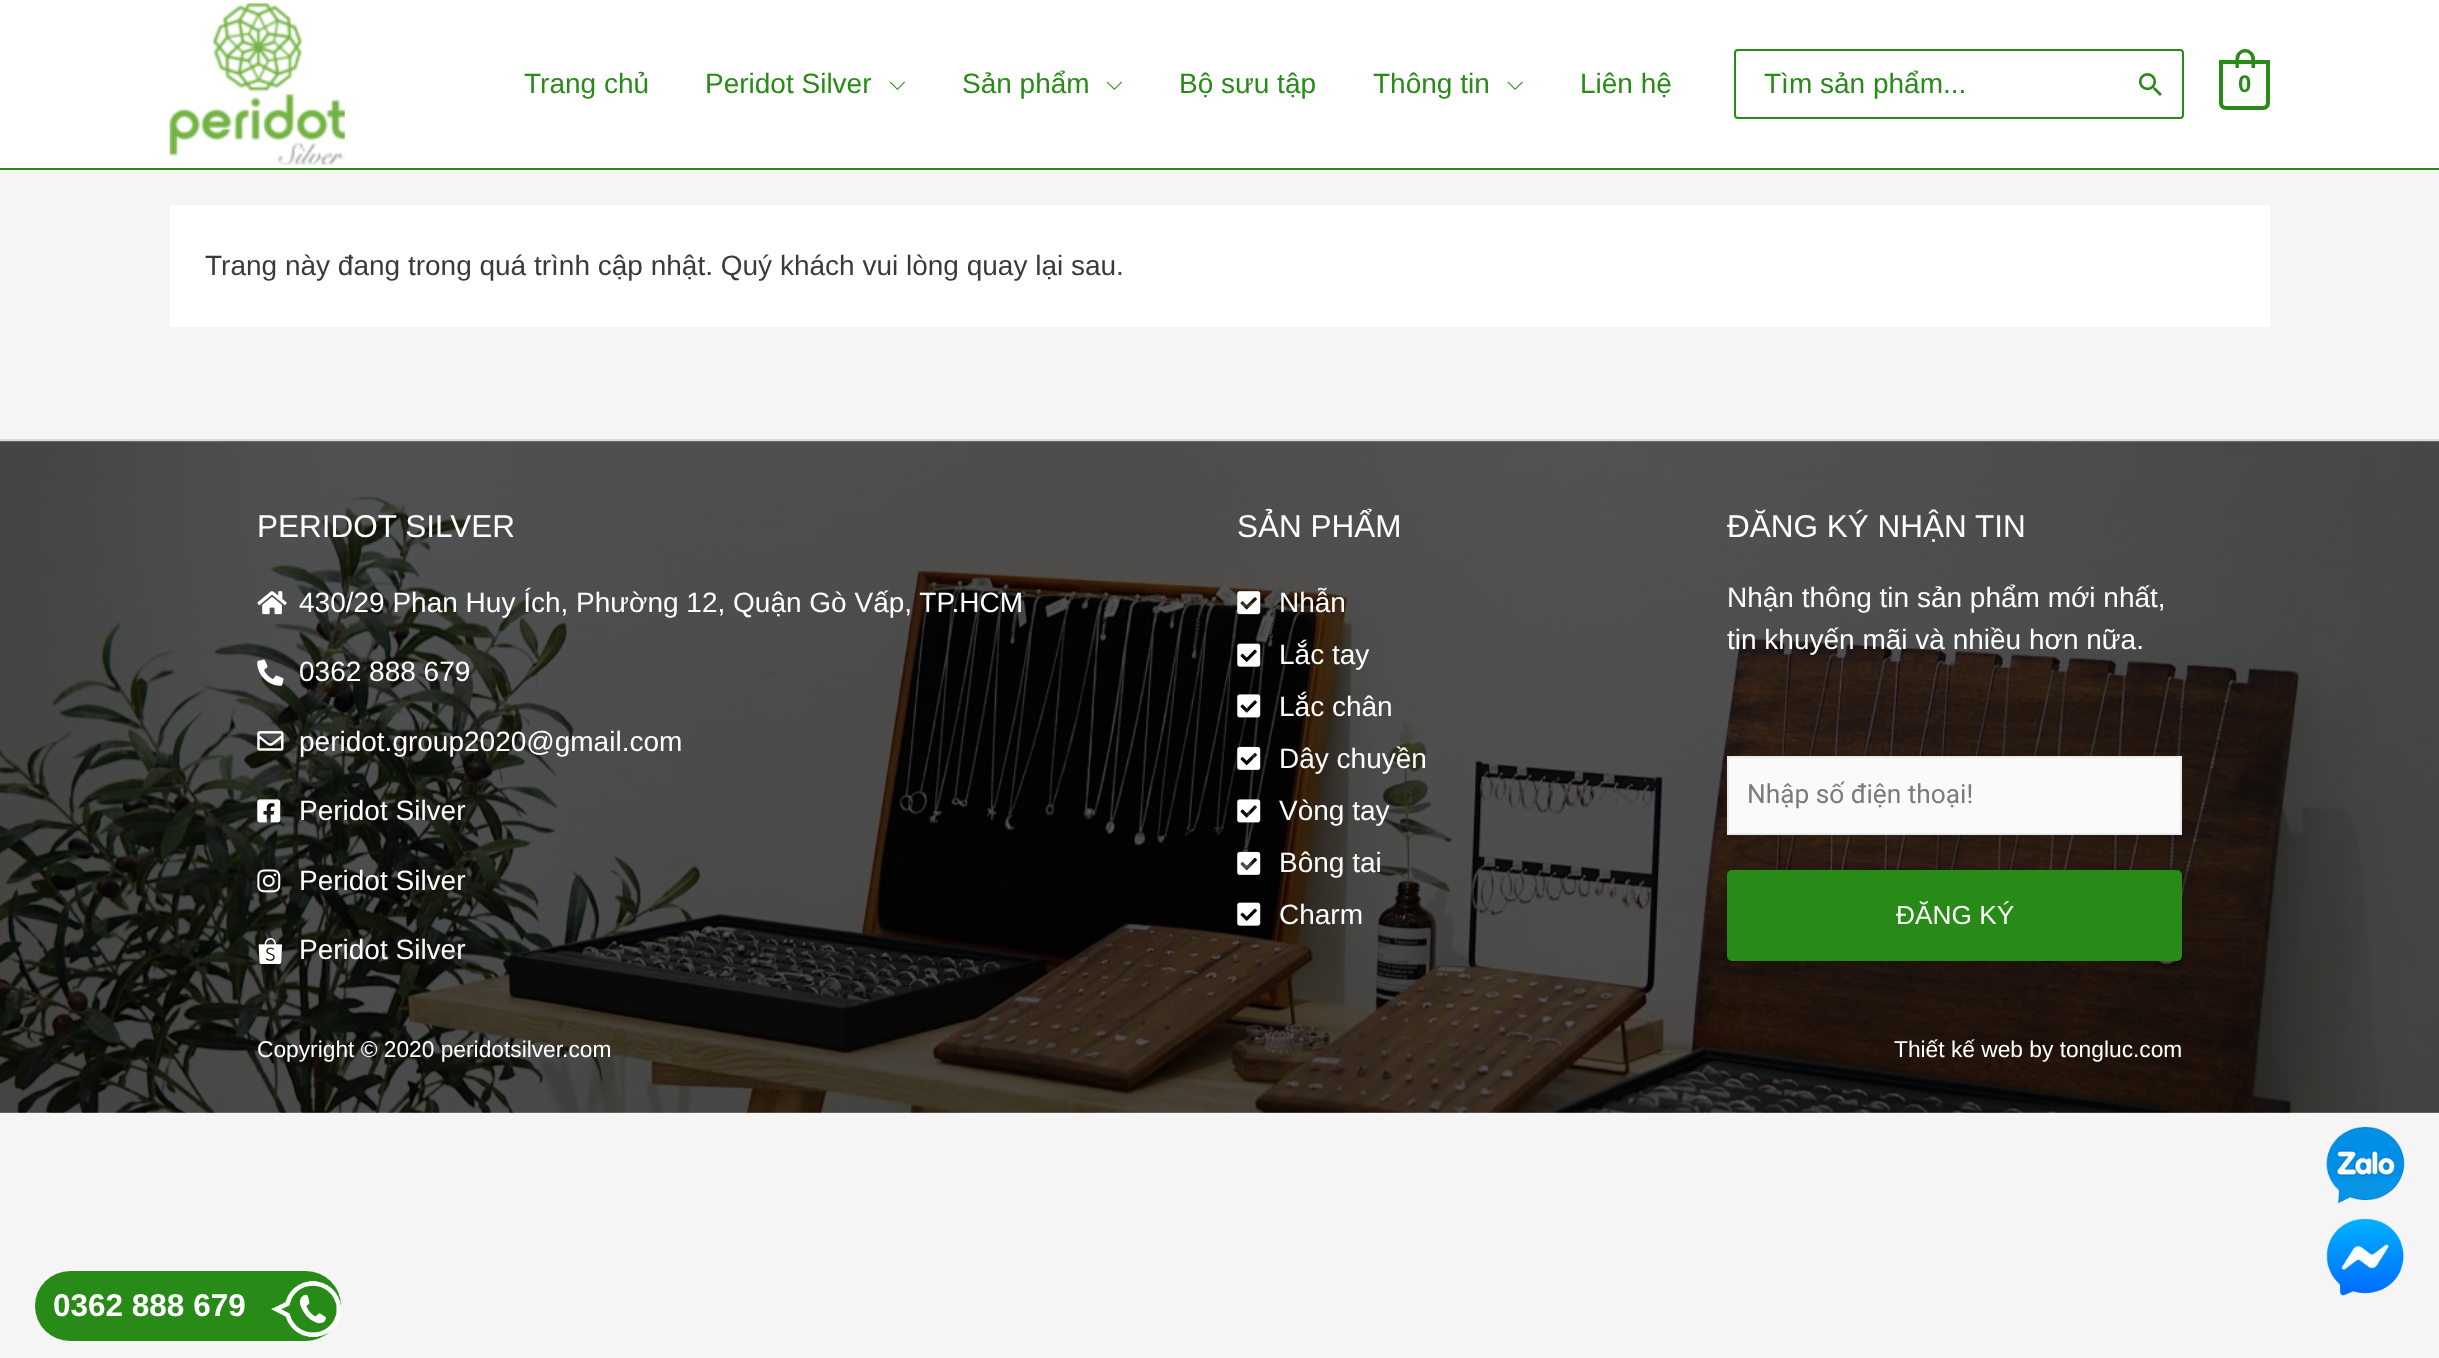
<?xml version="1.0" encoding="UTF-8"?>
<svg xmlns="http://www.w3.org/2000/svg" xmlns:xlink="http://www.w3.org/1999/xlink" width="2439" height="1358">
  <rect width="100%" height="100%" fill="#f5f5f5" />
  <rect width="2439" height="168" fill="#ffffff" />
  <rect y="168" width="2439" height="2" fill="#288a17" />
  <image x="169" y="3" width="176" height="162" xlink:href="image1.png" />
  <image x="889" y="81" width="16" height="9" xlink:href="image2.png" />
  <image x="1106" y="81" width="16" height="9" xlink:href="image2.png" />
  <image x="1507" y="81" width="16" height="9" xlink:href="image3.png" />
  <rect x="1735" y="50" width="448" height="68" rx="3" fill="none" stroke="#288a17" stroke-width="2" />
  <image x="2138" y="73" width="24" height="23" xlink:href="image4.png" />
  <path d="M 2221 62 h 47 v 41 c 0 3 -2 5 -5 5 h -37 c -3 0 -5 -2 -5 -5 z" fill="none" stroke="#288a17" stroke-width="4" />
  <path d="M 2245 49 c 5.5 0 10 4.5 10 9.5 v 9.5 h -19.5 v -9.5 c 0 -5 4.5 -9.5 9.5 -9.5 z m 0 3.5 c 8 0 6.5 10.5 6.5 15.5 h -12.5 c 0 -5 -1.5 -15.5 6 -15.5 z" fill="#288a17" fill-rule="evenodd" />
  <rect x="170" y="205" width="2100" height="122" fill="#ffffff" />
  <rect y="439" width="2439" height="2" fill="#ddd9d9" />
  <image x="0" y="441" width="2439" height="672" xlink:href="image5.png" />
  <image x="257" y="591" width="30" height="24" xlink:href="image6.png" />
  <image x="257" y="659" width="27" height="27" xlink:href="image7.png" />
  <image x="257" y="731" width="27" height="20" xlink:href="image8.png" />
  <image x="257" y="799" width="24" height="24" xlink:href="image9.png" />
  <image x="257" y="869" width="24" height="24" xlink:href="image10.png" />
  <image x="258" y="938" width="25" height="26" xlink:href="image11.png" />
  <image x="1237" y="591" width="24" height="24" xlink:href="image12.png" />
  <image x="1237" y="643" width="24" height="24" xlink:href="image13.png" />
  <image x="1237" y="694" width="24" height="24" xlink:href="image14.png" />
  <image x="1237" y="746" width="24" height="24" xlink:href="image15.png" />
  <image x="1237" y="799" width="24" height="24" xlink:href="image16.png" />
  <image x="1237" y="851" width="24" height="24" xlink:href="image17.png" />
  <image x="1237" y="902" width="24" height="24" xlink:href="image18.png" />
  <rect x="1728" y="757" width="453" height="77" fill="#fafafa" stroke="#eaeaea" stroke-width="2" />
  <rect x="1727" y="870" width="455" height="91" rx="5" fill="#288a17" />
  <image x="2326" y="1126" width="79" height="78" xlink:href="image19.png" />
  <image x="2326" y="1218" width="78" height="78" xlink:href="image20.png" />
  <rect x="35" y="1271" width="306" height="70" rx="35" fill="#288a17" />
  <image x="271" y="1280" width="70" height="57" xlink:href="image21.png" />
  <text x="524" y="93" style="font-family: Liberation Sans; font-size: 28px; fill: #288a17">Trang chủ</text>
  <text x="705" y="93" style="font-family: Liberation Sans; font-size: 28px; fill: #288a17">Peridot Silver</text>
  <text x="962" y="93" style="font-family: Liberation Sans; font-size: 28px; fill: #288a17">Sản phẩm</text>
  <text x="1179" y="93" style="font-family: Liberation Sans; font-size: 28px; fill: #288a17">Bộ sưu tập</text>
  <text x="1373" y="93" style="font-family: Liberation Sans; font-size: 28px; fill: #288a17">Thông tin</text>
  <text x="1580" y="93" style="font-family: Liberation Sans; font-size: 28px; fill: #288a17">Liên hệ</text>
  <text x="1764" y="93" style="font-family: Liberation Sans; font-size: 28px; fill: #288a17">Tìm sản phẩm...</text>
  <text x="2238" y="92" style="font-family: Liberation Sans; font-size: 24px; font-weight: bold; fill: #288a17">0</text>
  <text x="205" y="275" style="font-family: Liberation Sans; font-size: 28px; fill: #3a3a3a">Trang này đang trong quá trình cập nhật. Quý khách vui lòng quay lại sau.</text>
  <text x="257" y="537" style="font-family: Liberation Sans; font-size: 31.5px; fill: #ffffff">PERIDOT SILVER</text>
  <text x="299" y="612" style="font-family: Liberation Sans; font-size: 28px; fill: #ffffff">430/29 Phan Huy Ích, Phường 12, Quận Gò Vấp, TP.HCM</text>
  <text x="299" y="681" style="font-family: Liberation Sans; font-size: 28px; fill: #ffffff">0362 888 679</text>
  <text x="299" y="751" style="font-family: Liberation Sans; font-size: 28px; fill: #ffffff">peridot.group2020@gmail.com</text>
  <text x="299" y="820" style="font-family: Liberation Sans; font-size: 28px; fill: #ffffff">Peridot Silver</text>
  <text x="299" y="890" style="font-family: Liberation Sans; font-size: 28px; fill: #ffffff">Peridot Silver</text>
  <text x="299" y="959" style="font-family: Liberation Sans; font-size: 28px; fill: #ffffff">Peridot Silver</text>
  <text x="1237" y="537" style="font-family: Liberation Sans; font-size: 31.5px; fill: #ffffff">SẢN PHẨM</text>
  <text x="1279" y="612" style="font-family: Liberation Sans; font-size: 28px; fill: #ffffff">Nhẫn</text>
  <text x="1279" y="664" style="font-family: Liberation Sans; font-size: 28px; fill: #ffffff">Lắc tay</text>
  <text x="1279" y="716" style="font-family: Liberation Sans; font-size: 28px; fill: #ffffff">Lắc chân</text>
  <text x="1279" y="768" style="font-family: Liberation Sans; font-size: 28px; fill: #ffffff">Dây chuyền</text>
  <text x="1279" y="820" style="font-family: Liberation Sans; font-size: 28px; fill: #ffffff">Vòng tay</text>
  <text x="1279" y="872" style="font-family: Liberation Sans; font-size: 28px; fill: #ffffff">Bông tai</text>
  <text x="1279" y="924" style="font-family: Liberation Sans; font-size: 28px; fill: #ffffff">Charm</text>
  <text x="1727" y="537" style="font-family: Liberation Sans; font-size: 31.5px; fill: #ffffff">ĐĂNG KÝ NHẬN TIN</text>
  <text x="1727" y="607" style="font-family: Liberation Sans; font-size: 28px; fill: #ffffff">Nhận thông tin sản phẩm mới nhất,</text>
  <text x="1727" y="649" style="font-family: Liberation Sans; font-size: 28px; fill: #ffffff">tin khuyến mãi và nhiều hơn nữa.</text>
  <text x="1747" y="803" style="font-family: Roboto; font-size: 26.25px; fill: #7a7a7a">Nhập số điện thoại!</text>
  <text x="1896" y="924" style="font-family: Liberation Sans; font-size: 26.25px; fill: #ffffff">ĐĂNG KÝ</text>
  <text x="257" y="1057" style="font-family: Liberation Sans; font-size: 22.75px; fill: #ffffff">Copyright © 2020 peridotsilver.com</text>
  <text x="1894" y="1057" style="font-family: Liberation Sans; font-size: 22.75px; fill: #ffffff">Thiết kế web by tongluc.com</text>
  <text x="53" y="1316" style="font-family: Liberation Sans; font-size: 31.5px; font-weight: bold; fill: #ffffff">0362 888 679</text>
</svg>
